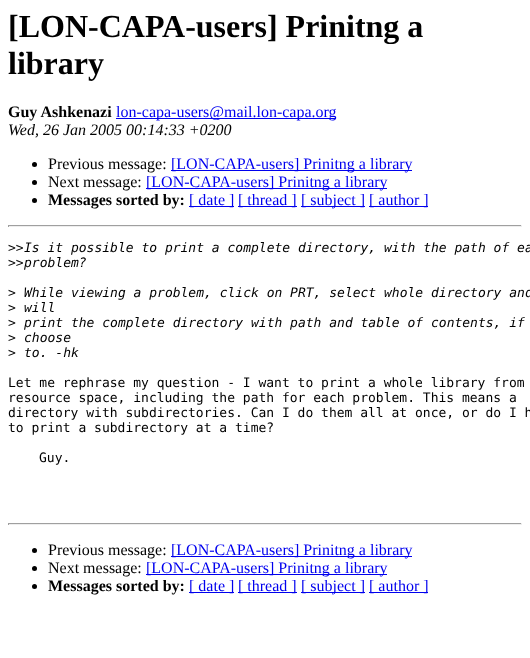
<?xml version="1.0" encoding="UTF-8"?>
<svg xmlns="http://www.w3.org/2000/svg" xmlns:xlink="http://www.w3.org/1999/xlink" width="530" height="658">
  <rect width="100%" height="100%" fill="#ffffff" />
  <rect x="116" y="118" width="220" height="1" fill="#0000ee" />
  <circle cx="34.5" cy="164.5" r="2.5" fill="#000000" />
  <rect x="171" y="170" width="241" height="1" fill="#0000ee" />
  <circle cx="34.5" cy="182.5" r="2.5" fill="#000000" />
  <rect x="146" y="188" width="241" height="1" fill="#0000ee" />
  <circle cx="34.5" cy="200.5" r="2.5" fill="#000000" />
  <rect x="189" y="206" width="45" height="1" fill="#0000ee" />
  <rect x="238" y="206" width="59" height="1" fill="#0000ee" />
  <rect x="301" y="206" width="64" height="1" fill="#0000ee" />
  <rect x="369" y="206" width="59" height="1" fill="#0000ee" />
  <rect x="8" y="225" width="514" height="1" fill="#9f9f9f" />
  <rect x="521" y="225" width="1" height="2" fill="#eeeeee" />
  <rect x="8" y="226" width="514" height="1" fill="#eeeeee" />
  <rect x="8" y="225" width="1" height="2" fill="#9f9f9f" />
  <rect x="8" y="523" width="514" height="1" fill="#9f9f9f" />
  <rect x="521" y="523" width="1" height="2" fill="#eeeeee" />
  <rect x="8" y="524" width="514" height="1" fill="#eeeeee" />
  <rect x="8" y="523" width="1" height="2" fill="#9f9f9f" />
  <circle cx="34.5" cy="550.5" r="2.5" fill="#000000" />
  <rect x="171" y="556" width="241" height="1" fill="#0000ee" />
  <circle cx="34.5" cy="568.5" r="2.5" fill="#000000" />
  <rect x="146" y="574" width="241" height="1" fill="#0000ee" />
  <circle cx="34.5" cy="586.5" r="2.5" fill="#000000" />
  <rect x="189" y="592" width="45" height="1" fill="#0000ee" />
  <rect x="238" y="592" width="59" height="1" fill="#0000ee" />
  <rect x="301" y="592" width="64" height="1" fill="#0000ee" />
  <rect x="369" y="592" width="59" height="1" fill="#0000ee" />
  <text x="8" y="37" style="font-family: Liberation Serif; font-size: 32px; font-weight: bold; fill: #000000">[LON-CAPA-users] Prinitng a</text>
  <text x="8" y="74" style="font-family: Liberation Serif; font-size: 32px; font-weight: bold; fill: #000000">library</text>
  <text x="8" y="117" style="font-family: Liberation Serif; font-size: 16px; font-weight: bold; fill: #000000">Guy Ashkenazi</text>
  <text x="116" y="117" style="font-family: Liberation Serif; font-size: 16px; fill: #0000ee">lon-capa-users@mail.lon-capa.org</text>
  <text x="8" y="135" style="font-family: Liberation Serif; font-size: 16px; font-style: italic; fill: #000000">Wed, 26 Jan 2005 00:14:33 +0200</text>
  <text x="48" y="169" style="font-family: Liberation Serif; font-size: 16px; fill: #000000">Previous message:</text>
  <text x="171" y="169" style="font-family: Liberation Serif; font-size: 16px; fill: #0000ee">[LON-CAPA-users] Prinitng a library</text>
  <text x="48" y="187" style="font-family: Liberation Serif; font-size: 16px; fill: #000000">Next message:</text>
  <text x="146" y="187" style="font-family: Liberation Serif; font-size: 16px; fill: #0000ee">[LON-CAPA-users] Prinitng a library</text>
  <text x="48" y="205" style="font-family: Liberation Serif; font-size: 16px; font-weight: bold; fill: #000000">Messages sorted by:</text>
  <text x="189" y="205" style="font-family: Liberation Serif; font-size: 16px; fill: #0000ee">[ date ]</text>
  <text x="238" y="205" style="font-family: Liberation Serif; font-size: 16px; fill: #0000ee">[ thread ]</text>
  <text x="301" y="205" style="font-family: Liberation Serif; font-size: 16px; fill: #0000ee">[ subject ]</text>
  <text x="369" y="205" style="font-family: Liberation Serif; font-size: 16px; fill: #0000ee">[ author ]</text>
  <text x="8" y="252" style="font-family: DejaVu Sans Mono; font-size: 13px; fill: #000000">&gt;&gt;</text>
  <text x="24" y="252" style="font-family: DejaVu Sans Mono; font-size: 13px; font-style: italic; fill: #000000">Is it possible to print a complete directory, with the path of ea</text>
  <text x="8" y="267" style="font-family: DejaVu Sans Mono; font-size: 13px; fill: #000000">&gt;&gt;</text>
  <text x="24" y="267" style="font-family: DejaVu Sans Mono; font-size: 13px; font-style: italic; fill: #000000">problem?</text>
  <text x="8" y="297" style="font-family: DejaVu Sans Mono; font-size: 13px; fill: #000000">&gt;</text>
  <text x="24" y="297" style="font-family: DejaVu Sans Mono; font-size: 13px; font-style: italic; fill: #000000">While viewing a problem, click on PRT, select whole directory and</text>
  <text x="8" y="312" style="font-family: DejaVu Sans Mono; font-size: 13px; fill: #000000">&gt;</text>
  <text x="24" y="312" style="font-family: DejaVu Sans Mono; font-size: 13px; font-style: italic; fill: #000000">will</text>
  <text x="8" y="327" style="font-family: DejaVu Sans Mono; font-size: 13px; fill: #000000">&gt;</text>
  <text x="24" y="327" style="font-family: DejaVu Sans Mono; font-size: 13px; font-style: italic; fill: #000000">print the complete directory with path and table of contents, if</text>
  <text x="8" y="342" style="font-family: DejaVu Sans Mono; font-size: 13px; fill: #000000">&gt;</text>
  <text x="24" y="342" style="font-family: DejaVu Sans Mono; font-size: 13px; font-style: italic; fill: #000000">choose</text>
  <text x="8" y="357" style="font-family: DejaVu Sans Mono; font-size: 13px; fill: #000000">&gt;</text>
  <text x="24" y="357" style="font-family: DejaVu Sans Mono; font-size: 13px; font-style: italic; fill: #000000">to. -hk</text>
  <text x="8" y="387" style="font-family: DejaVu Sans Mono; font-size: 13px; fill: #000000">Let me rephrase my question - I want to print a whole library from</text>
  <text x="8" y="402" style="font-family: DejaVu Sans Mono; font-size: 13px; fill: #000000">resource space, including the path for each problem. This means a</text>
  <text x="8" y="417" style="font-family: DejaVu Sans Mono; font-size: 13px; fill: #000000">directory with subdirectories. Can I do them all at once, or do I h</text>
  <text x="8" y="432" style="font-family: DejaVu Sans Mono; font-size: 13px; fill: #000000">to print a subdirectory at a time?</text>
  <text x="39" y="462" style="font-family: DejaVu Sans Mono; font-size: 13px; fill: #000000">Guy.</text>
  <text x="48" y="555" style="font-family: Liberation Serif; font-size: 16px; fill: #000000">Previous message:</text>
  <text x="171" y="555" style="font-family: Liberation Serif; font-size: 16px; fill: #0000ee">[LON-CAPA-users] Prinitng a library</text>
  <text x="48" y="573" style="font-family: Liberation Serif; font-size: 16px; fill: #000000">Next message:</text>
  <text x="146" y="573" style="font-family: Liberation Serif; font-size: 16px; fill: #0000ee">[LON-CAPA-users] Prinitng a library</text>
  <text x="48" y="591" style="font-family: Liberation Serif; font-size: 16px; font-weight: bold; fill: #000000">Messages sorted by:</text>
  <text x="189" y="591" style="font-family: Liberation Serif; font-size: 16px; fill: #0000ee">[ date ]</text>
  <text x="238" y="591" style="font-family: Liberation Serif; font-size: 16px; fill: #0000ee">[ thread ]</text>
  <text x="301" y="591" style="font-family: Liberation Serif; font-size: 16px; fill: #0000ee">[ subject ]</text>
  <text x="369" y="591" style="font-family: Liberation Serif; font-size: 16px; fill: #0000ee">[ author ]</text>
</svg>
